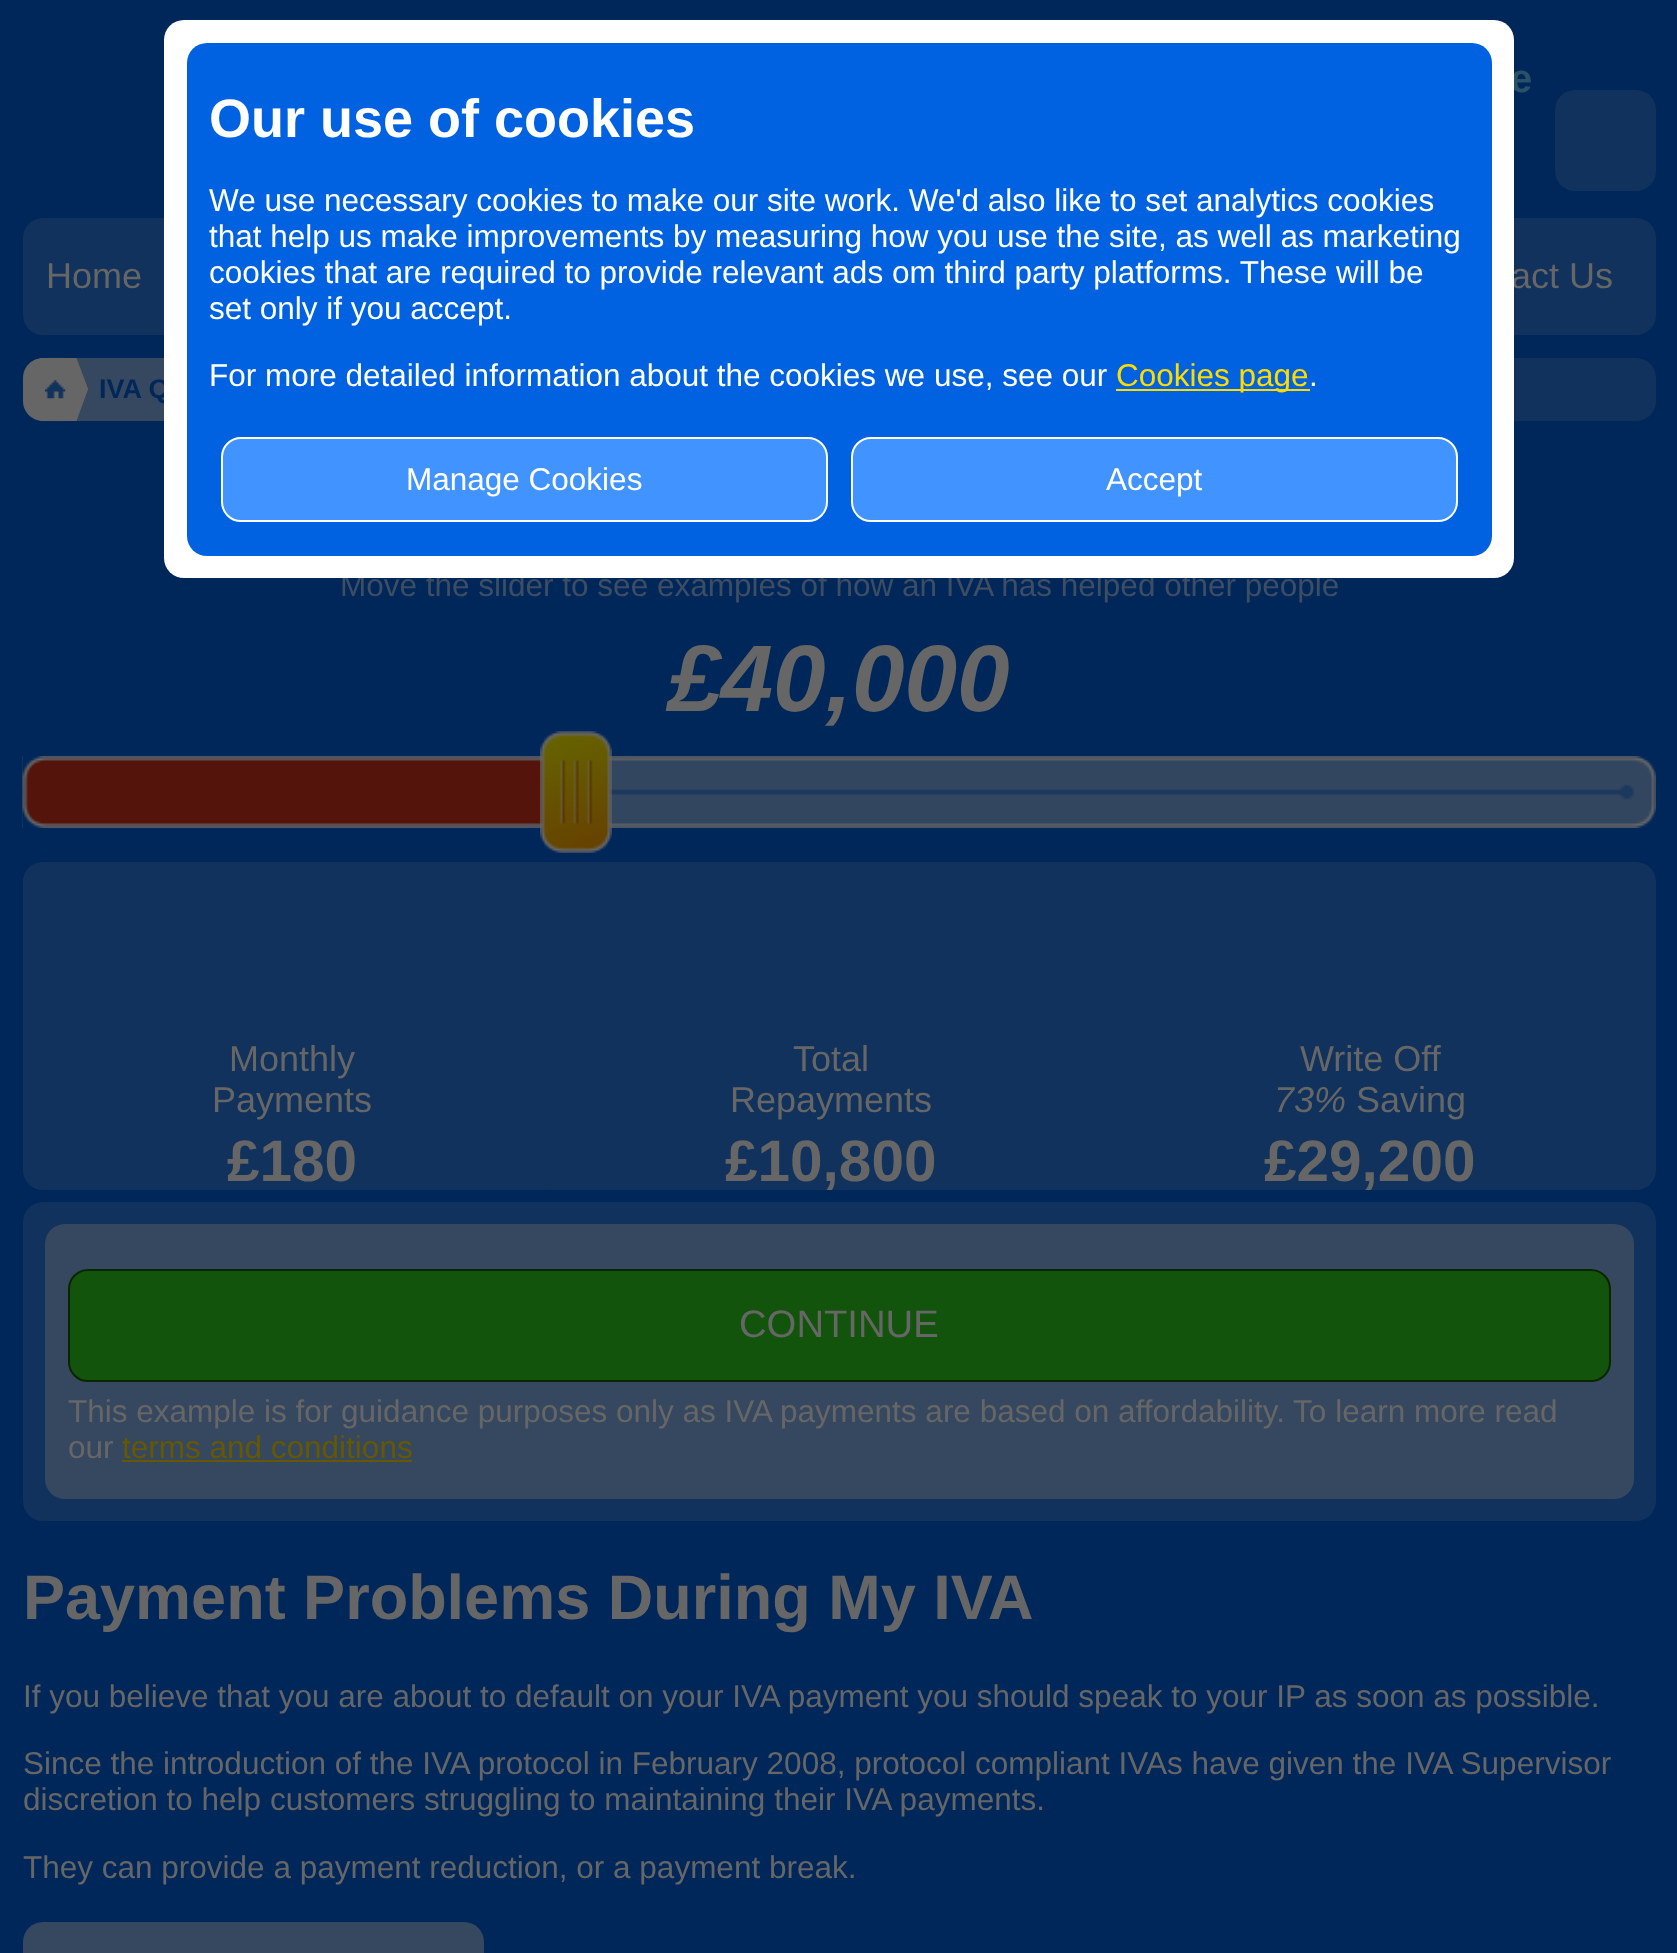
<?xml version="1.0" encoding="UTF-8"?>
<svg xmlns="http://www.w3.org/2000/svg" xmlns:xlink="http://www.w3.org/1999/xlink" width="1677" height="1953">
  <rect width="100%" height="100%" fill="#00275a" />
  <rect x="1555" y="90" width="101" height="101" rx="20" fill="#11325c" />
  <rect x="23" y="218" width="1633" height="117" rx="20" fill="#11325c" />
  <rect x="23" y="358" width="1633" height="63" rx="20" fill="#11325c" />
  <path d="M 43 358 h 45 v 63 h -45 c -11 0 -20 -9 -20 -20 v -23 c 0 -11 9 -20 20 -20 z" fill="#666666" />
  <image x="45" y="380" width="21" height="19" xlink:href="image1.png" />
  <path d="M 76.5 358 h 11.5 v 31 z m 11.5 63 h -11.5 l 11.5 -32 z" fill="#364860" />
  <path d="M 76 421 v -63 l 12 31 z" fill="#666666" />
  <rect x="88" y="358" width="76" height="63" fill="#364860" />
  <image x="22" y="756" width="1634" height="72" xlink:href="image2.png" />
  <image x="22" y="756" width="59" height="72" xlink:href="image3.png" />
  <image x="81" y="757" width="462" height="70" xlink:href="image4.png" />
  <image x="540" y="731" width="72" height="122" xlink:href="image5.png" />
  <rect x="23" y="862" width="1633" height="328" rx="20" fill="#11325c" />
  <rect x="23" y="862" width="540" height="328" rx="20" fill="#11325c" />
  <rect x="23" y="1202" width="1633" height="319" rx="20" fill="#11325c" />
  <rect x="45" y="1224" width="1589" height="275" rx="20" fill="#364860" />
  <rect x="69" y="1270" width="1541" height="111" rx="19" fill="#12540b" stroke="#092600" stroke-width="2" />
  <rect x="122" y="1460" width="290" height="2" fill="#665800" />
  <rect x="23" y="1922" width="461" height="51" rx="20" fill="#364860" />
  <text x="1510" y="92" style="font-family: Liberation Sans; font-size: 40px; font-weight: bold; fill: #295266">e</text>
  <text x="46" y="288" style="font-family: Liberation Sans; font-size: 36px; fill: #666666">Home</text>
  <text x="1511" y="288" style="font-family: Liberation Sans; font-size: 36px; fill: #666666">act Us</text>
  <text x="99" y="398" style="font-family: Liberation Sans; font-size: 27px; font-weight: bold; fill: #00275a">IVA Q</text>
  <text x="340" y="596" style="font-family: Liberation Sans; font-size: 31.5px; fill: #3e4d61">Move the slider to see examples of how an IVA has helped other people</text>
  <text x="668" y="711" style="font-family: Liberation Sans; font-size: 94.5px; font-weight: bold; font-style: italic; fill: #666666">£40,000</text>
  <text x="229" y="1071" style="font-family: Liberation Sans; font-size: 36px; fill: #666666">Monthly</text>
  <text x="212" y="1112" style="font-family: Liberation Sans; font-size: 36px; fill: #666666">Payments</text>
  <text x="227" y="1181" style="font-family: Liberation Sans; font-size: 58.5px; font-weight: bold; fill: #666666">£180</text>
  <text x="793" y="1071" style="font-family: Liberation Sans; font-size: 36px; fill: #666666">Total</text>
  <text x="730" y="1112" style="font-family: Liberation Sans; font-size: 36px; fill: #666666">Repayments</text>
  <text x="725" y="1181" style="font-family: Liberation Sans; font-size: 58.5px; font-weight: bold; fill: #666666">£10,800</text>
  <text x="1300" y="1071" style="font-family: Liberation Sans; font-size: 36px; fill: #666666">Write Off</text>
  <text x="1274" y="1112" style="font-family: Liberation Sans; font-size: 36px; font-style: italic; fill: #666666">73%</text>
  <text x="1356" y="1112" style="font-family: Liberation Sans; font-size: 36px; fill: #666666">Saving</text>
  <text x="1264" y="1181" style="font-family: Liberation Sans; font-size: 58.5px; font-weight: bold; fill: #666666">£29,200</text>
  <text x="739" y="1337" style="font-family: Liberation Sans; font-size: 38.25px; fill: #666666">CONTINUE</text>
  <text x="68" y="1422" style="font-family: Liberation Sans; font-size: 31.5px; fill: #666666">This example is for guidance purposes only as IVA payments are based on affordability. To learn more read</text>
  <text x="68" y="1458" style="font-family: Liberation Sans; font-size: 31.5px; fill: #666666">our</text>
  <text x="122" y="1458" style="font-family: Liberation Sans; font-size: 31.5px; fill: #665800">terms and conditions</text>
  <text x="23" y="1619" style="font-family: Liberation Sans; font-size: 63px; font-weight: bold; fill: #666666">Payment Problems During My IVA</text>
  <text x="23" y="1707" style="font-family: Liberation Sans; font-size: 31.5px; fill: #666666">If you believe that you are about to default on your IVA payment you should speak to your IP as soon as possible.</text>
  <text x="23" y="1774" style="font-family: Liberation Sans; font-size: 31.5px; fill: #666666">Since the introduction of the IVA protocol in February 2008, protocol compliant IVAs have given the IVA Supervisor</text>
  <text x="23" y="1810" style="font-family: Liberation Sans; font-size: 31.5px; fill: #666666">discretion to help customers struggling to maintaining their IVA payments.</text>
  <text x="23" y="1878" style="font-family: Liberation Sans; font-size: 31.5px; fill: #666666">They can provide a payment reduction, or a payment break.</text>
  <rect x="164" y="20" width="1350" height="558" rx="20" fill="#ffffff" />
  <rect x="187" y="43" width="1305" height="513" rx="20" fill="#0062e0" />
  <text x="209" y="137" style="font-family: Liberation Sans; font-size: 54px; font-weight: bold; fill: #ffffff">Our use of cookies</text>
  <text x="209" y="211" style="font-family: Liberation Sans; font-size: 31.5px; fill: #ffffff">We use necessary cookies to make our site work. We'd also like to set analytics cookies</text>
  <text x="209" y="247" style="font-family: Liberation Sans; font-size: 31.5px; fill: #ffffff">that help us make improvements by measuring how you use the site, as well as marketing</text>
  <text x="209" y="283" style="font-family: Liberation Sans; font-size: 31.5px; fill: #ffffff">cookies that are required to provide relevant ads om third party platforms. These will be</text>
  <text x="209" y="319" style="font-family: Liberation Sans; font-size: 31.5px; fill: #ffffff">set only if you accept.</text>
  <text x="209" y="386" style="font-family: Liberation Sans; font-size: 31.5px; fill: #ffffff">For more detailed information about the cookies we use, see our</text>
  <rect x="1116" y="389" width="194" height="2" fill="#ffdc00" />
  <text x="1116" y="386" style="font-family: Liberation Sans; font-size: 31.5px; fill: #ffdc00">Cookies page</text>
  <text x="1309" y="386" style="font-family: Liberation Sans; font-size: 31.5px; fill: #ffffff">.</text>
  <rect x="222" y="438" width="605" height="83" rx="19" fill="#4194ff" stroke="#ffffff" stroke-width="2" />
  <text x="406" y="490" style="font-family: Liberation Sans; font-size: 31.5px; fill: #ffffff">Manage Cookies</text>
  <rect x="852" y="438" width="605" height="83" rx="19" fill="#4194ff" stroke="#ffffff" stroke-width="2" />
  <text x="1106" y="490" style="font-family: Liberation Sans; font-size: 31.5px; fill: #ffffff">Accept</text>
</svg>
